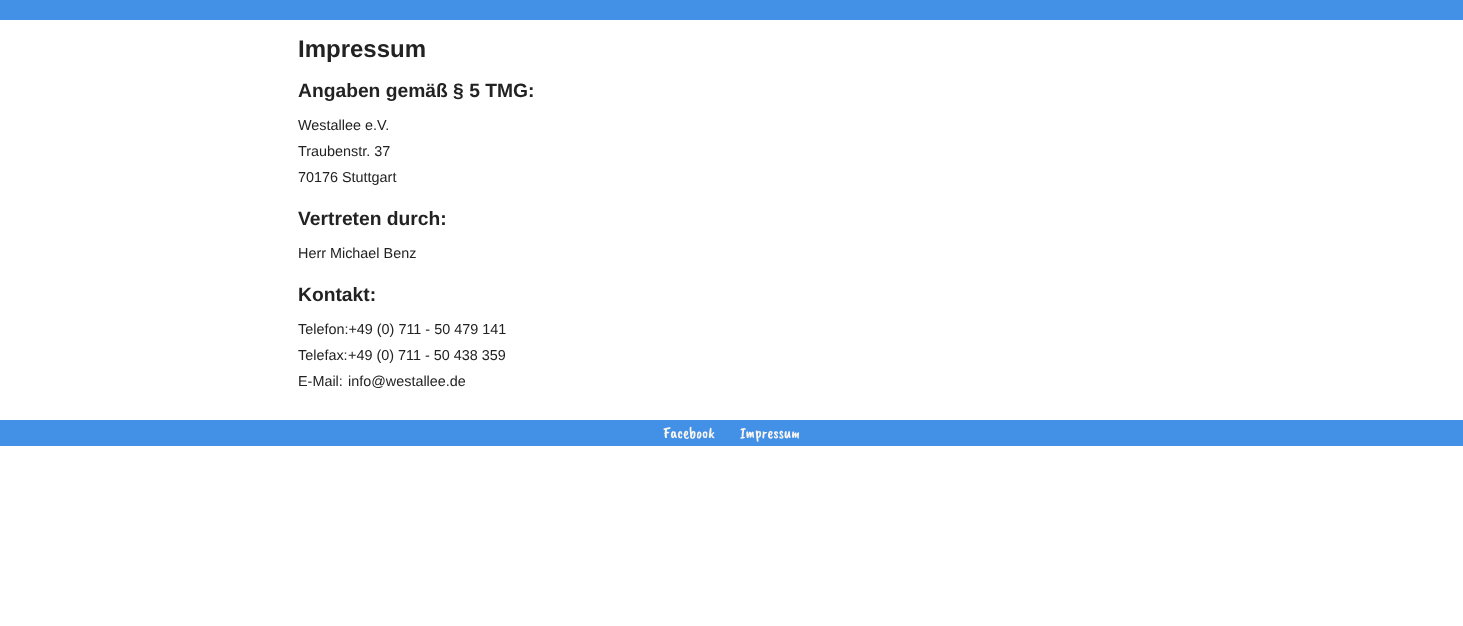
<?xml version="1.0" encoding="UTF-8"?>
<svg xmlns="http://www.w3.org/2000/svg" xmlns:xlink="http://www.w3.org/1999/xlink" width="1463" height="626">
  <rect width="100%" height="100%" fill="#ffffff" />
  <rect width="1463" height="20" fill="#4391e7" />
  <rect y="420" width="1463" height="26" fill="#4391e7" />
  <text x="298" y="57" style="font-family: Liberation Sans; font-size: 24px; font-weight: bold; fill: #222222">Impressum</text>
  <text x="298" y="97" style="font-family: Liberation Sans; font-size: 19.25px; font-weight: bold; fill: #222222">Angaben gemäß § 5 TMG:</text>
  <text x="298" y="130" style="font-family: Liberation Sans; font-size: 14.4px; fill: #222222">Westallee e.V.</text>
  <text x="298" y="156" style="font-family: Liberation Sans; font-size: 14.4px; fill: #222222">Traubenstr. 37</text>
  <text x="298" y="182" style="font-family: Liberation Sans; font-size: 14.4px; fill: #222222">70176 Stuttgart</text>
  <text x="298" y="225" style="font-family: Liberation Sans; font-size: 19.25px; font-weight: bold; fill: #222222">Vertreten durch:</text>
  <text x="298" y="258" style="font-family: Liberation Sans; font-size: 14.4px; fill: #222222">Herr Michael Benz</text>
  <text x="298" y="301" style="font-family: Liberation Sans; font-size: 19.25px; font-weight: bold; fill: #222222">Kontakt:</text>
  <text x="298" y="334" style="font-family: Liberation Sans; font-size: 14.4px; fill: #222222">Telefon:+49 (0) 711 - 50 479 141</text>
  <text x="298" y="360" style="font-family: Liberation Sans; font-size: 14.4px; fill: #222222">Telefax:</text>
  <text x="348" y="360" style="font-family: Liberation Sans; font-size: 14.4px; fill: #222222">+49 (0) 711 - 50 438 359</text>
  <text x="298" y="386" style="font-family: Liberation Sans; font-size: 14.4px; fill: #222222">E-Mail:</text>
  <text x="348" y="386" style="font-family: Liberation Sans; font-size: 14.4px; fill: #222222">info@westallee.de</text>
  <text x="663" y="438" style="font-family: Caveat Brush; font-size: 16px; fill: #fdf6ef">Facebook</text>
  <text x="740" y="438" style="font-family: Caveat Brush; font-size: 16px; fill: #fdf6ef">Impressum</text>
</svg>
